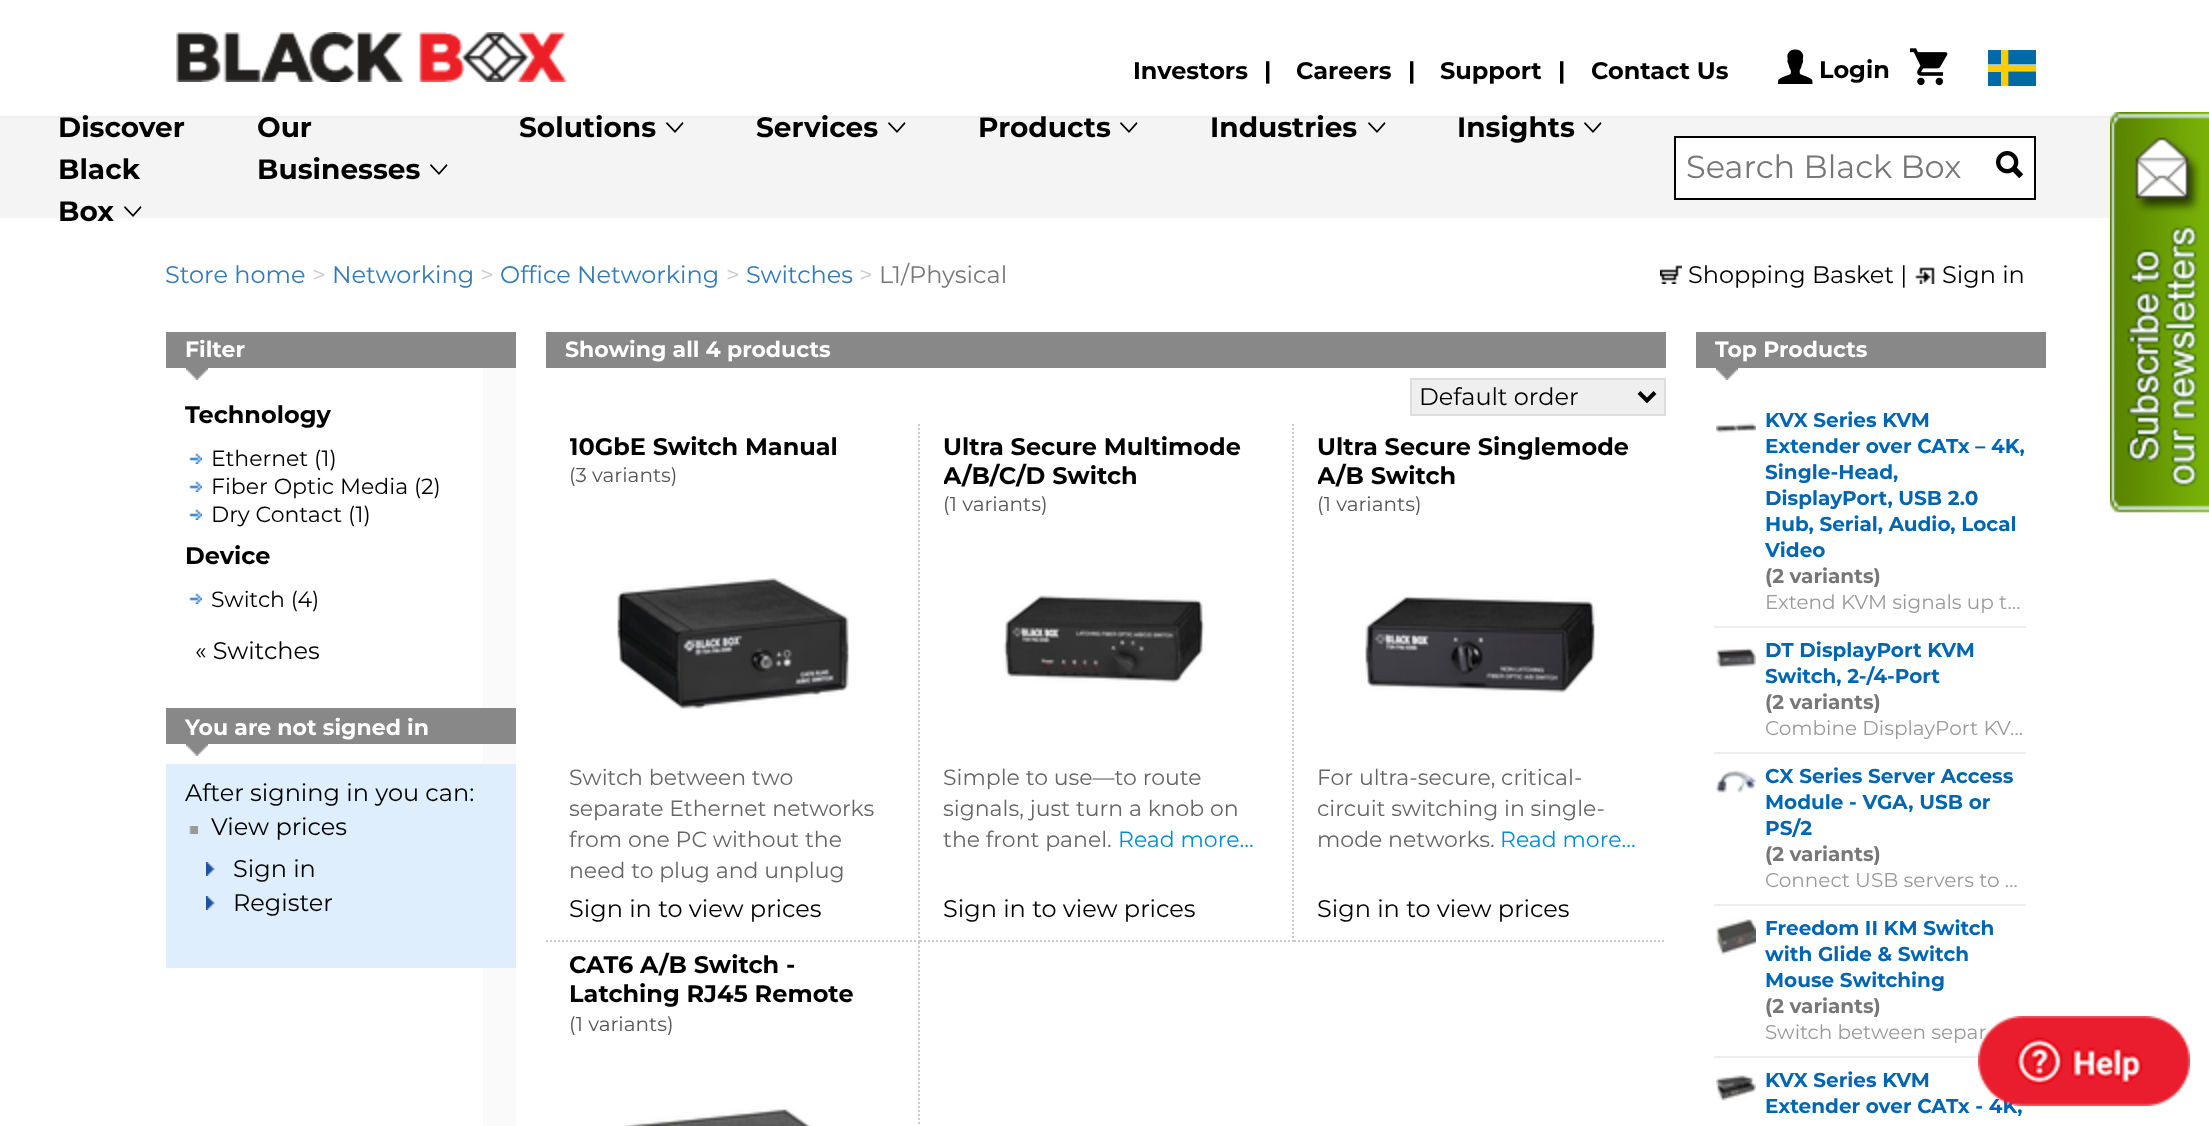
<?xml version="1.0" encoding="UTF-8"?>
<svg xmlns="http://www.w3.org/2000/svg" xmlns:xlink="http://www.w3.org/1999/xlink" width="2209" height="1126">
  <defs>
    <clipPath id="clip1"><rect x="570" y="434" width="324" height="28" /></clipPath>
    <clipPath id="clip2"><rect x="944" y="434" width="324" height="56" /></clipPath>
    <clipPath id="clip3"><rect x="1318" y="434" width="324" height="56" /></clipPath>
  </defs>
  <rect width="100%" height="100%" fill="#ffffff" />
  <rect y="116" width="2119" height="2" fill="#eeeeee" />
  <image x="176" y="32" width="391" height="50" xlink:href="image1.png" />
  <image x="1778" y="49" width="35" height="35" xlink:href="image2.png" />
  <image x="1910" y="48" width="38" height="38" xlink:href="image3.png" />
  <image x="1988" y="50" width="48" height="36" xlink:href="image4.png" />
  <rect y="118" width="2115" height="100" fill="#f4f4f4" />
  <path d="M 140.5 206 l 1 1.5 l -8.5 9.5 l -9 -9.5 l 1 -1.5 l 8 8.5 z" fill="#000000" />
  <path d="M 446.5 164 l 1 1.5 l -8.5 9.5 l -9 -9.5 l 1 -1.5 l 8 8.5 z" fill="#000000" />
  <path d="M 682.5 122 l 1 1.5 l -8.5 9.5 l -9 -9.5 l 1 -1.5 l 8 8.5 z" fill="#000000" />
  <path d="M 904.5 122 l 1 1.5 l -8.5 9.5 l -9 -9.5 l 1 -1.5 l 8 8.5 z" fill="#000000" />
  <path d="M 1136.5 122 l 1 1.5 l -8.5 9.5 l -9 -9.5 l 1 -1.5 l 8 8.5 z" fill="#000000" />
  <path d="M 1384.5 122 l 1 1.5 l -8.5 9.5 l -9 -9.5 l 1 -1.5 l 8 8.5 z" fill="#000000" />
  <path d="M 1600.5 122 l 1 1.5 l -8.5 9.5 l -9 -9.5 l 1 -1.5 l 8 8.5 z" fill="#000000" />
  <rect x="1675" y="137" width="360" height="62" fill="#ffffff" stroke="#000000" stroke-width="2" />
  <image x="1996" y="151" width="27" height="27" xlink:href="image5.png" />
  <image x="1660" y="265" width="22" height="19" xlink:href="image6.png" />
  <image x="1915" y="267" width="20" height="17" xlink:href="image7.png" />
  <rect x="483" y="368" width="33" height="758" fill="#fafafa" />
  <rect x="166" y="332" width="350" height="36" fill="#888888" />
  <image x="186" y="368" width="22" height="12" xlink:href="image8.png" />
  <image x="189" y="453" width="13" height="11" xlink:href="image9.png" />
  <image x="189" y="481" width="13" height="11" xlink:href="image9.png" />
  <image x="189" y="509" width="13" height="11" xlink:href="image9.png" />
  <image x="189" y="593" width="13" height="11" xlink:href="image9.png" />
  <rect x="166" y="708" width="350" height="36" fill="#888888" />
  <image x="186" y="744" width="22" height="12" xlink:href="image8.png" />
  <rect x="166" y="764" width="350" height="204" fill="#deeefc" />
  <image x="189" y="826" width="9" height="8" xlink:href="image10.png" />
  <image x="206" y="862" width="9" height="14" xlink:href="image11.png" />
  <image x="206" y="896" width="9" height="14" xlink:href="image11.png" />
  <rect x="546" y="332" width="1120" height="36" fill="#888888" />
  <rect x="1411" y="379" width="254" height="36" fill="#efefef" stroke="#dddddd" stroke-width="2" />
  <path d="M 1639 392.5 l 8 8 l 8 -8" fill="none" stroke="#000000" stroke-width="4" />
  <path d="M 919 424 v 518" fill="none" stroke="#cccccc" stroke-width="2" stroke-dasharray="2 2" />
  <path d="M 546 941 h 374" fill="none" stroke="#cccccc" stroke-width="2" stroke-dasharray="2 2" />
  <image x="617" y="578" width="233" height="131" xlink:href="image12.png" />
  <path d="M 1293 424 v 518" fill="none" stroke="#cccccc" stroke-width="2" stroke-dasharray="2 2" />
  <path d="M 920 941 h 374" fill="none" stroke="#cccccc" stroke-width="2" stroke-dasharray="2 2" />
  <image x="1003" y="595" width="203" height="88" xlink:href="image13.png" />
  <path d="M 1294 941 h 372" fill="none" stroke="#cccccc" stroke-width="2" stroke-dasharray="2 2" />
  <image x="1365" y="596" width="230" height="97" xlink:href="image14.png" />
  <path d="M 919 942 v 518" fill="none" stroke="#cccccc" stroke-width="2" stroke-dasharray="2 2" />
  <image x="625" y="1108" width="187" height="18" xlink:href="image15.png" />
  <rect x="1696" y="332" width="350" height="36" fill="#888888" />
  <image x="1716" y="368" width="22" height="12" xlink:href="image8.png" />
  <image x="1716" y="423" width="40" height="10" xlink:href="image16.png" />
  <rect x="1714" y="626" width="312" height="2" fill="#eeeeee" />
  <image x="1716" y="647" width="40" height="22" xlink:href="image17.png" />
  <rect x="1714" y="752" width="312" height="2" fill="#eeeeee" />
  <image x="1716" y="770" width="40" height="23" xlink:href="image18.png" />
  <rect x="1714" y="904" width="312" height="2" fill="#eeeeee" />
  <image x="1716" y="916" width="40" height="39" xlink:href="image19.png" />
  <rect x="1714" y="1056" width="267" height="2" fill="#eeeeee" />
  <image x="1716" y="1075" width="40" height="26" xlink:href="image20.png" />
  <image x="2110" y="112" width="99" height="401" xlink:href="image21.png" />
  <text x="1133" y="79" style="font-family: Montserrat; font-size: 24px; font-weight: bold; fill: #000000">Investors</text>
  <text x="1264" y="79" style="font-family: Montserrat; font-size: 24px; font-weight: bold; fill: #000000">|</text>
  <text x="1296" y="79" style="font-family: Montserrat; font-size: 24px; font-weight: bold; fill: #000000">Careers</text>
  <text x="1408" y="79" style="font-family: Montserrat; font-size: 24px; font-weight: bold; fill: #000000">|</text>
  <text x="1440" y="79" style="font-family: Montserrat; font-size: 24px; font-weight: bold; fill: #000000">Support</text>
  <text x="1558" y="79" style="font-family: Montserrat; font-size: 24px; font-weight: bold; fill: #000000">|</text>
  <text x="1591" y="79" style="font-family: Montserrat; font-size: 24px; font-weight: bold; fill: #000000">Contact Us</text>
  <text x="1819" y="78" style="font-family: Montserrat; font-size: 24px; font-weight: bold; fill: #000000">Login</text>
  <text x="58" y="137" style="font-family: Montserrat; font-size: 28px; font-weight: bold; fill: #000000">Discover</text>
  <text x="58" y="179" style="font-family: Montserrat; font-size: 28px; font-weight: bold; fill: #000000">Black</text>
  <text x="58" y="221" style="font-family: Montserrat; font-size: 28px; font-weight: bold; fill: #000000">Box</text>
  <text x="257" y="137" style="font-family: Montserrat; font-size: 28px; font-weight: bold; fill: #000000">Our</text>
  <text x="257" y="179" style="font-family: Montserrat; font-size: 28px; font-weight: bold; fill: #000000">Businesses</text>
  <text x="519" y="137" style="font-family: Montserrat; font-size: 28px; font-weight: bold; fill: #000000">Solutions</text>
  <text x="756" y="137" style="font-family: Montserrat; font-size: 28px; font-weight: bold; fill: #000000">Services</text>
  <text x="978" y="137" style="font-family: Montserrat; font-size: 28px; font-weight: bold; fill: #000000">Products</text>
  <text x="1210" y="137" style="font-family: Montserrat; font-size: 28px; font-weight: bold; fill: #000000">Industries</text>
  <text x="1457" y="137" style="font-family: Montserrat; font-size: 28px; font-weight: bold; fill: #000000">Insights</text>
  <text x="1686" y="178" style="font-family: Montserrat; font-size: 32px; fill: #777777">Search Black Box</text>
  <text x="165" y="283" style="font-family: Montserrat; font-size: 24px; fill: #337ab7">Store home</text>
  <text x="312" y="283" style="font-family: Montserrat; font-size: 24px; fill: #cccccc">&gt;</text>
  <text x="332" y="283" style="font-family: Montserrat; font-size: 24px; fill: #337ab7">Networking</text>
  <text x="480" y="283" style="font-family: Montserrat; font-size: 24px; fill: #cccccc">&gt;</text>
  <text x="500" y="283" style="font-family: Montserrat; font-size: 24px; fill: #337ab7">Office Networking</text>
  <text x="726" y="283" style="font-family: Montserrat; font-size: 24px; fill: #cccccc">&gt;</text>
  <text x="746" y="283" style="font-family: Montserrat; font-size: 24px; fill: #337ab7">Switches</text>
  <text x="859" y="283" style="font-family: Montserrat; font-size: 24px; fill: #cccccc">&gt;</text>
  <text x="879" y="283" style="font-family: Montserrat; font-size: 24px; fill: #777777">L1/Physical</text>
  <text x="1688" y="283" style="font-family: Montserrat; font-size: 24px; fill: #000000">Shopping Basket |</text>
  <text x="1942" y="283" style="font-family: Montserrat; font-size: 24px; fill: #000000">Sign in</text>
  <text x="185" y="357" style="font-family: Montserrat; font-size: 22px; font-weight: bold; fill: #ffffff">Filter</text>
  <text x="185" y="423" style="font-family: Montserrat; font-size: 24px; font-weight: bold; fill: #000000">Technology</text>
  <text x="211" y="466" style="font-family: Montserrat; font-size: 22px; fill: #000000">Ethernet (1)</text>
  <text x="211" y="494" style="font-family: Montserrat; font-size: 22px; fill: #000000">Fiber Optic Media (2)</text>
  <text x="211" y="522" style="font-family: Montserrat; font-size: 22px; fill: #000000">Dry Contact (1)</text>
  <text x="185" y="564" style="font-family: Montserrat; font-size: 24px; font-weight: bold; fill: #000000">Device</text>
  <text x="211" y="607" style="font-family: Montserrat; font-size: 22px; fill: #000000">Switch (4)</text>
  <text x="195" y="659" style="font-family: Montserrat; font-size: 24px; fill: #000000">« Switches</text>
  <text x="185" y="735" style="font-family: Montserrat; font-size: 22px; font-weight: bold; fill: #ffffff">You are not signed in</text>
  <text x="185" y="801" style="font-family: Montserrat; font-size: 24px; fill: #000000">After signing in you can:</text>
  <text x="211" y="835" style="font-family: Montserrat; font-size: 24px; fill: #000000">View prices</text>
  <text x="233" y="877" style="font-family: Montserrat; font-size: 24px; fill: #000000">Sign in</text>
  <text x="233" y="911" style="font-family: Montserrat; font-size: 24px; fill: #000000">Register</text>
  <text x="565" y="357" style="font-family: Montserrat; font-size: 22px; font-weight: bold; fill: #ffffff">Showing all 4 products</text>
  <text x="1419" y="405" style="font-family: Montserrat; font-size: 24px; fill: #000000">Default order</text>
  <g clip-path="url(#clip1)">
    <text x="569" y="455" style="font-family: Montserrat; font-size: 24px; font-weight: bold; fill: #000000">10GbE Switch Manual</text>
  </g>
  <text x="569" y="482" style="font-family: Montserrat; font-size: 20px; fill: #555555">(3 variants)</text>
  <text x="569" y="785" style="font-family: Montserrat; font-size: 22px; fill: #666666">Switch between two</text>
  <text x="569" y="816" style="font-family: Montserrat; font-size: 22px; fill: #666666">separate Ethernet networks</text>
  <text x="569" y="847" style="font-family: Montserrat; font-size: 22px; fill: #666666">from one PC without the</text>
  <text x="569" y="878" style="font-family: Montserrat; font-size: 22px; fill: #666666">need to plug and unplug</text>
  <text x="569" y="917" style="font-family: Montserrat; font-size: 24px; fill: #000000">Sign in to view prices</text>
  <text x="943" y="455" style="font-family: Montserrat; font-size: 24px; font-weight: bold; fill: #000000">Ultra Secure Multimode</text>
  <g clip-path="url(#clip2)">
    <text x="943" y="484" style="font-family: Montserrat; font-size: 24px; font-weight: bold; fill: #000000">A/B/C/D Switch</text>
  </g>
  <text x="943" y="511" style="font-family: Montserrat; font-size: 20px; fill: #555555">(1 variants)</text>
  <text x="943" y="785" style="font-family: Montserrat; font-size: 22px; fill: #666666">Simple to use—to route</text>
  <text x="943" y="816" style="font-family: Montserrat; font-size: 22px; fill: #666666">signals, just turn a knob on</text>
  <text x="943" y="847" style="font-family: Montserrat; font-size: 22px; fill: #666666">the front panel.</text>
  <text x="1118" y="847" style="font-family: Montserrat; font-size: 22px; fill: #008ed3">Read more…</text>
  <text x="943" y="917" style="font-family: Montserrat; font-size: 24px; fill: #000000">Sign in to view prices</text>
  <text x="1317" y="455" style="font-family: Montserrat; font-size: 24px; font-weight: bold; fill: #000000">Ultra Secure Singlemode</text>
  <g clip-path="url(#clip3)">
    <text x="1317" y="484" style="font-family: Montserrat; font-size: 24px; font-weight: bold; fill: #000000">A/B Switch</text>
  </g>
  <text x="1317" y="511" style="font-family: Montserrat; font-size: 20px; fill: #555555">(1 variants)</text>
  <text x="1317" y="785" style="font-family: Montserrat; font-size: 22px; fill: #666666">For ultra-secure, critical-</text>
  <text x="1317" y="816" style="font-family: Montserrat; font-size: 22px; fill: #666666">circuit switching in single-</text>
  <text x="1317" y="847" style="font-family: Montserrat; font-size: 22px; fill: #666666">mode networks.</text>
  <text x="1500" y="847" style="font-family: Montserrat; font-size: 22px; fill: #008ed3">Read more…</text>
  <text x="1317" y="917" style="font-family: Montserrat; font-size: 24px; fill: #000000">Sign in to view prices</text>
  <text x="569" y="973" style="font-family: Montserrat; font-size: 24px; font-weight: bold; fill: #000000">CAT6 A/B Switch -</text>
  <text x="569" y="1002" style="font-family: Montserrat; font-size: 24px; font-weight: bold; fill: #000000">Latching RJ45 Remote</text>
  <text x="569" y="1031" style="font-family: Montserrat; font-size: 20px; fill: #555555">(1 variants)</text>
  <text x="1715" y="357" style="font-family: Montserrat; font-size: 22px; font-weight: bold; fill: #ffffff">Top Products</text>
  <text x="1765" y="427" style="font-family: Montserrat; font-size: 20px; font-weight: bold; fill: #0066b2">KVX Series KVM</text>
  <text x="1765" y="453" style="font-family: Montserrat; font-size: 20px; font-weight: bold; fill: #0066b2">Extender over CATx – 4K,</text>
  <text x="1765" y="479" style="font-family: Montserrat; font-size: 20px; font-weight: bold; fill: #0066b2">Single-Head,</text>
  <text x="1765" y="505" style="font-family: Montserrat; font-size: 20px; font-weight: bold; fill: #0066b2">DisplayPort, USB 2.0</text>
  <text x="1765" y="531" style="font-family: Montserrat; font-size: 20px; font-weight: bold; fill: #0066b2">Hub, Serial, Audio, Local</text>
  <text x="1765" y="557" style="font-family: Montserrat; font-size: 20px; font-weight: bold; fill: #0066b2">Video</text>
  <text x="1765" y="583" style="font-family: Montserrat; font-size: 20px; font-weight: bold; fill: #777777">(2 variants)</text>
  <text x="1765" y="609" style="font-family: Montserrat; font-size: 20px; fill: #999999">Extend KVM signals up t…</text>
  <text x="1765" y="657" style="font-family: Montserrat; font-size: 20px; font-weight: bold; fill: #0066b2">DT DisplayPort KVM</text>
  <text x="1765" y="683" style="font-family: Montserrat; font-size: 20px; font-weight: bold; fill: #0066b2">Switch, 2-/4-Port</text>
  <text x="1765" y="709" style="font-family: Montserrat; font-size: 20px; font-weight: bold; fill: #777777">(2 variants)</text>
  <text x="1765" y="735" style="font-family: Montserrat; font-size: 20px; fill: #999999">Combine DisplayPort KV…</text>
  <text x="1765" y="783" style="font-family: Montserrat; font-size: 20px; font-weight: bold; fill: #0066b2">CX Series Server Access</text>
  <text x="1765" y="809" style="font-family: Montserrat; font-size: 20px; font-weight: bold; fill: #0066b2">Module - VGA, USB or</text>
  <text x="1765" y="835" style="font-family: Montserrat; font-size: 20px; font-weight: bold; fill: #0066b2">PS/2</text>
  <text x="1765" y="861" style="font-family: Montserrat; font-size: 20px; font-weight: bold; fill: #777777">(2 variants)</text>
  <text x="1765" y="887" style="font-family: Montserrat; font-size: 20px; fill: #999999">Connect USB servers to …</text>
  <text x="1765" y="935" style="font-family: Montserrat; font-size: 20px; font-weight: bold; fill: #0066b2">Freedom II KM Switch</text>
  <text x="1765" y="961" style="font-family: Montserrat; font-size: 20px; font-weight: bold; fill: #0066b2">with Glide &amp; Switch</text>
  <text x="1765" y="987" style="font-family: Montserrat; font-size: 20px; font-weight: bold; fill: #0066b2">Mouse Switching</text>
  <text x="1765" y="1013" style="font-family: Montserrat; font-size: 20px; font-weight: bold; fill: #777777">(2 variants)</text>
  <text x="1765" y="1039" style="font-family: Montserrat; font-size: 20px; fill: #999999">Switch between separ</text>
  <text x="1765" y="1087" style="font-family: Montserrat; font-size: 20px; font-weight: bold; fill: #0066b2">KVX Series KVM</text>
  <text x="1765" y="1113" style="font-family: Montserrat; font-size: 20px; font-weight: bold; fill: #0066b2">Extender over CATx - 4K,</text>
  <image x="1978" y="1016" width="212" height="90" xlink:href="image22.png" />
</svg>
